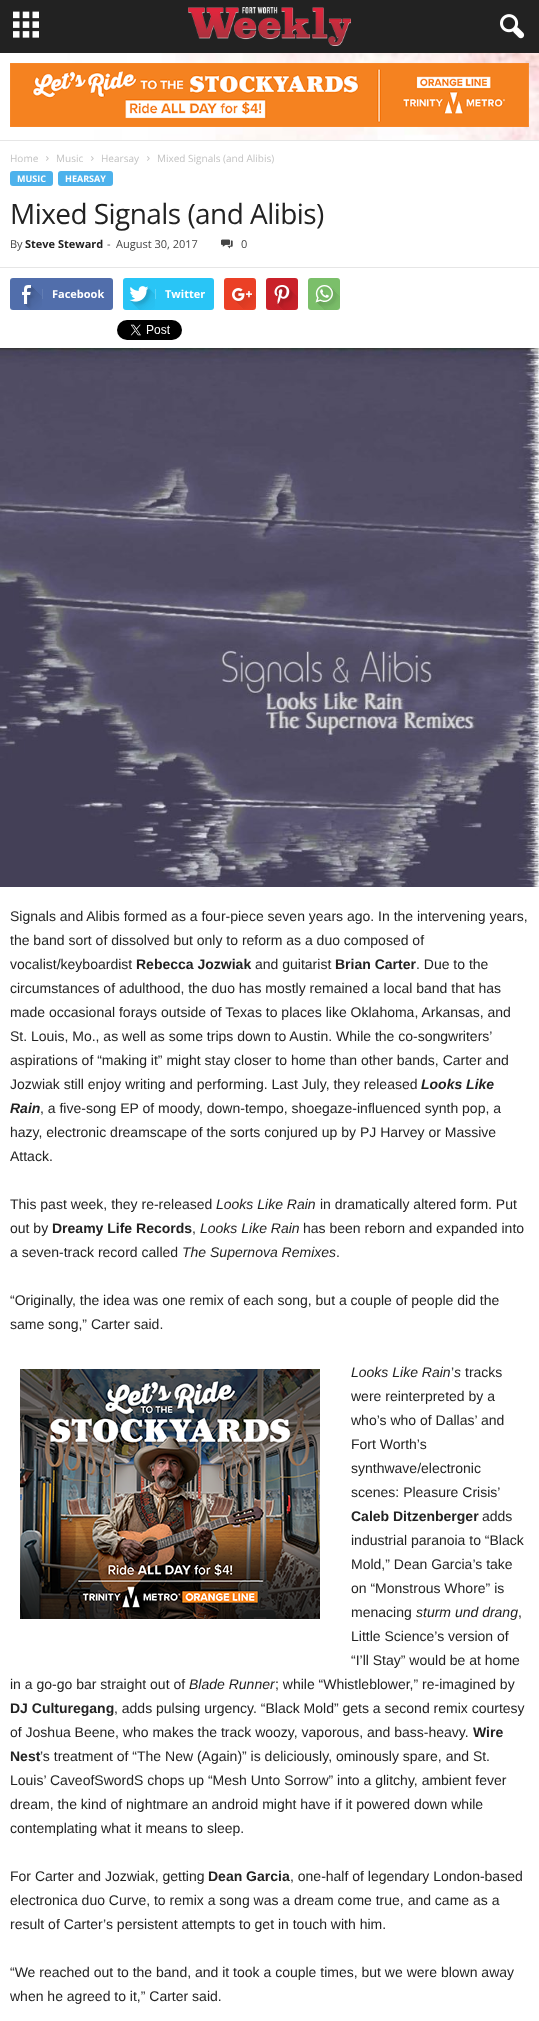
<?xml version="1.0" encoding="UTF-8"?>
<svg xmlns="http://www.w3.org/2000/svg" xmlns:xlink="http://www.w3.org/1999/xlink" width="539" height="2021">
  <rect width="100%" height="100%" fill="#ffffff" />
  <image x="0" y="53" width="539" height="87" xlink:href="image1.png" />
  <rect width="539" height="53" fill="#222222" />
  <image x="13" y="11" width="26" height="27" xlink:href="image2.png" />
  <image x="188" y="7" width="163" height="39" xlink:href="image3.png" />
  <image x="500" y="14" width="25" height="25" xlink:href="image4.png" />
  <rect y="140" width="539" height="1" fill="#e6e6e6" />
  <image x="10" y="63" width="519" height="64" xlink:href="image5.png" />
  <image x="46" y="156" width="3" height="5" xlink:href="image6.png" />
  <image x="91" y="156" width="3" height="5" xlink:href="image6.png" />
  <image x="147" y="156" width="3" height="5" xlink:href="image6.png" />
  <rect x="10" y="171" width="43" height="15" rx="3" fill="#4db2ec" />
  <rect x="58" y="171" width="55" height="15" rx="3" fill="#4db2ec" />
  <image x="221" y="239" width="12" height="10" xlink:href="image7.png" />
  <rect y="267" width="539" height="1" fill="#e6e6e6" />
  <rect x="10" y="278" width="103" height="32" rx="3" fill="#516eab" />
  <image x="22" y="285" width="20" height="25" xlink:href="image8.png" />
  <rect x="42" y="289" width="1" height="10" fill="#627db3" />
  <rect x="123" y="278" width="91" height="32" rx="3" fill="#29c5f6" />
  <image x="129" y="286" width="26" height="24" xlink:href="image9.png" />
  <rect x="155" y="289" width="1" height="10" fill="#5fd4f8" />
  <rect x="224" y="278" width="32" height="32" rx="3" fill="#eb4026" />
  <image x="232" y="288" width="24" height="21" xlink:href="image10.png" />
  <rect x="266" y="278" width="32" height="32" rx="3" fill="#ca212a" />
  <image x="274" y="285" width="24" height="25" xlink:href="image11.png" />
  <rect x="308" y="278" width="32" height="32" rx="3" fill="#7bbf6a" />
  <image x="315" y="285" width="25" height="25" xlink:href="image12.png" />
  <image x="117" y="320" width="65" height="20" xlink:href="image13.png" />
  <image x="0" y="348" width="539" height="539" xlink:href="image14.png" />
  <image x="20" y="1369" width="300" height="250" xlink:href="image15.png" />
  <text x="10" y="162" style="font-family: Open Sans; font-size: 10px; fill: #c3c3c3">Home</text>
  <text x="56" y="162" style="font-family: Open Sans; font-size: 10px; fill: #c3c3c3">Music</text>
  <text x="101" y="162" style="font-family: Open Sans; font-size: 10px; fill: #c3c3c3">Hearsay</text>
  <text x="157" y="162" style="font-family: Open Sans; font-size: 10px; fill: #c3c3c3">Mixed Signals (and Alibis)</text>
  <text x="17" y="182" style="font-family: Open Sans; font-size: 9px; font-weight: bold; fill: #ffffff">MUSIC</text>
  <text x="65" y="182" style="font-family: Open Sans; font-size: 9px; font-weight: bold; fill: #ffffff">HEARSAY</text>
  <text x="10" y="224" style="font-family: Open Sans; font-size: 28px; letter-spacing: -0.55px; fill: #222222">Mixed Signals (and Alibis)</text>
  <text x="10" y="248" style="font-family: Open Sans; font-size: 11px; fill: #444444">By</text>
  <text x="25" y="248" style="font-family: Open Sans; font-size: 11px; font-weight: bold; fill: #222222">Steve Steward</text>
  <text x="107" y="248" style="font-family: Open Sans; font-size: 11px; fill: #444444">-</text>
  <text x="116" y="248" style="font-family: Open Sans; font-size: 11px; fill: #444444">August 30, 2017</text>
  <text x="241" y="248" style="font-family: Open Sans; font-size: 11px; fill: #444444">0</text>
  <text x="52" y="298" style="font-family: Open Sans; font-size: 11px; font-weight: bold; fill: #ffffff">Facebook</text>
  <text x="165" y="298" style="font-family: Open Sans; font-size: 11px; font-weight: bold; fill: #ffffff">Twitter</text>
  <text x="10" y="921" style="font-family: Liberation Sans; font-size: 14px; fill: #222222">Signals and Alibis formed as a four-piece seven years ago. In the intervening years,</text>
  <text x="10" y="945" style="font-family: Liberation Sans; font-size: 14px; fill: #222222">the band sort of dissolved but only to reform as a duo composed of</text>
  <text x="10" y="969" style="font-family: Liberation Sans; font-size: 14px; fill: #222222">vocalist/keyboardist</text>
  <text x="136" y="969" style="font-family: Liberation Sans; font-size: 14px; font-weight: bold; fill: #222222">Rebecca Jozwiak</text>
  <text x="255" y="969" style="font-family: Liberation Sans; font-size: 14px; fill: #222222">and guitarist</text>
  <text x="335" y="969" style="font-family: Liberation Sans; font-size: 14px; font-weight: bold; fill: #222222">Brian Carter</text>
  <text x="416" y="969" style="font-family: Liberation Sans; font-size: 14px; fill: #222222">. Due to the</text>
  <text x="10" y="993" style="font-family: Liberation Sans; font-size: 14px; fill: #222222">circumstances of adulthood, the duo has mostly remained a local band that has</text>
  <text x="10" y="1017" style="font-family: Liberation Sans; font-size: 14px; fill: #222222">made occasional forays outside of Texas to places like Oklahoma, Arkansas, and</text>
  <text x="10" y="1041" style="font-family: Liberation Sans; font-size: 14px; fill: #222222">St. Louis, Mo., as well as some trips down to Austin. While the co-songwriters’</text>
  <text x="10" y="1065" style="font-family: Liberation Sans; font-size: 14px; fill: #222222">aspirations of “making it” might stay closer to home than other bands, Carter and</text>
  <text x="10" y="1089" style="font-family: Liberation Sans; font-size: 14px; fill: #222222">Jozwiak still enjoy writing and performing. Last July, they released</text>
  <text x="421" y="1089" style="font-family: Liberation Sans; font-size: 14px; font-weight: bold; font-style: italic; fill: #222222">Looks Like</text>
  <text x="10" y="1113" style="font-family: Liberation Sans; font-size: 14px; font-weight: bold; font-style: italic; fill: #222222">Rain</text>
  <text x="40" y="1113" style="font-family: Liberation Sans; font-size: 14px; fill: #222222">, a five-song EP of moody, down-tempo, shoegaze-influenced synth pop, a</text>
  <text x="10" y="1137" style="font-family: Liberation Sans; font-size: 14px; fill: #222222">hazy, electronic dreamscape of the sorts conjured up by PJ Harvey or Massive</text>
  <text x="10" y="1161" style="font-family: Liberation Sans; font-size: 14px; fill: #222222">Attack.</text>
  <text x="10" y="1209" style="font-family: Liberation Sans; font-size: 14px; fill: #222222">This past week, they re-released</text>
  <text x="216" y="1209" style="font-family: Liberation Sans; font-size: 14px; font-style: italic; fill: #222222">Looks Like Rain</text>
  <text x="320" y="1209" style="font-family: Liberation Sans; font-size: 14px; fill: #222222">in dramatically altered form. Put</text>
  <text x="10" y="1233" style="font-family: Liberation Sans; font-size: 14px; fill: #222222">out by</text>
  <text x="52" y="1233" style="font-family: Liberation Sans; font-size: 14px; font-weight: bold; fill: #222222">Dreamy Life Records</text>
  <text x="192" y="1233" style="font-family: Liberation Sans; font-size: 14px; fill: #222222">,</text>
  <text x="200" y="1233" style="font-family: Liberation Sans; font-size: 14px; font-style: italic; fill: #222222">Looks Like Rain</text>
  <text x="303" y="1233" style="font-family: Liberation Sans; font-size: 14px; fill: #222222">has been reborn and expanded into</text>
  <text x="10" y="1257" style="font-family: Liberation Sans; font-size: 14px; fill: #222222">a seven-track record called</text>
  <text x="182" y="1257" style="font-family: Liberation Sans; font-size: 14px; font-style: italic; fill: #222222">The Supernova Remixes</text>
  <text x="336" y="1257" style="font-family: Liberation Sans; font-size: 14px; fill: #222222">.</text>
  <text x="10" y="1305" style="font-family: Liberation Sans; font-size: 14px; fill: #222222">“Originally, the idea was one remix of each song, but a couple of people did the</text>
  <text x="10" y="1329" style="font-family: Liberation Sans; font-size: 14px; fill: #222222">same song,” Carter said.</text>
  <text x="351" y="1377" style="font-family: Liberation Sans; font-size: 14px; font-style: italic; fill: #222222">Looks Like Rain</text>
  <text x="451" y="1377" style="font-family: Liberation Sans; font-size: 14px; fill: #222222">’</text>
  <text x="454" y="1377" style="font-family: Liberation Sans; font-size: 14px; font-style: italic; fill: #222222">s</text>
  <text x="465" y="1377" style="font-family: Liberation Sans; font-size: 14px; fill: #222222">tracks</text>
  <text x="351" y="1401" style="font-family: Liberation Sans; font-size: 14px; fill: #222222">were reinterpreted by a</text>
  <text x="351" y="1425" style="font-family: Liberation Sans; font-size: 14px; fill: #222222">who’s who of Dallas’ and</text>
  <text x="351" y="1449" style="font-family: Liberation Sans; font-size: 14px; fill: #222222">Fort Worth’s</text>
  <text x="351" y="1473" style="font-family: Liberation Sans; font-size: 14px; fill: #222222">synthwave/electronic</text>
  <text x="351" y="1497" style="font-family: Liberation Sans; font-size: 14px; fill: #222222">scenes: Pleasure Crisis’</text>
  <text x="351" y="1521" style="font-family: Liberation Sans; font-size: 14px; font-weight: bold; fill: #222222">Caleb Ditzenberger</text>
  <text x="482" y="1521" style="font-family: Liberation Sans; font-size: 14px; fill: #222222">adds</text>
  <text x="351" y="1545" style="font-family: Liberation Sans; font-size: 14px; fill: #222222">industrial paranoia to “Black</text>
  <text x="351" y="1569" style="font-family: Liberation Sans; font-size: 14px; fill: #222222">Mold,” Dean Garcia’s take</text>
  <text x="351" y="1593" style="font-family: Liberation Sans; font-size: 14px; fill: #222222">on “Monstrous Whore” is</text>
  <text x="351" y="1617" style="font-family: Liberation Sans; font-size: 14px; fill: #222222">menacing</text>
  <text x="416" y="1617" style="font-family: Liberation Sans; font-size: 14px; font-style: italic; fill: #222222">sturm und drang</text>
  <text x="518" y="1617" style="font-family: Liberation Sans; font-size: 14px; fill: #222222">,</text>
  <text x="351" y="1641" style="font-family: Liberation Sans; font-size: 14px; fill: #222222">Little Science’s version of</text>
  <text x="351" y="1665" style="font-family: Liberation Sans; font-size: 14px; fill: #222222">“I’ll Stay” would be at home</text>
  <text x="10" y="1689" style="font-family: Liberation Sans; font-size: 14px; fill: #222222">in a go-go bar straight out of</text>
  <text x="189" y="1689" style="font-family: Liberation Sans; font-size: 14px; font-style: italic; fill: #222222">Blade Runner</text>
  <text x="275" y="1689" style="font-family: Liberation Sans; font-size: 14px; fill: #222222">; while “Whistleblower,” re-imagined by</text>
  <text x="10" y="1713" style="font-family: Liberation Sans; font-size: 14px; font-weight: bold; fill: #222222">DJ Culturegang</text>
  <text x="114" y="1713" style="font-family: Liberation Sans; font-size: 14px; fill: #222222">, adds pulsing urgency. “Black Mold” gets a second remix courtesy</text>
  <text x="10" y="1737" style="font-family: Liberation Sans; font-size: 14px; fill: #222222">of Joshua Beene, who makes the track woozy, vaporous, and bass-heavy.</text>
  <text x="473" y="1737" style="font-family: Liberation Sans; font-size: 14px; font-weight: bold; fill: #222222">Wire</text>
  <text x="10" y="1761" style="font-family: Liberation Sans; font-size: 14px; font-weight: bold; fill: #222222">Nest</text>
  <text x="40" y="1761" style="font-family: Liberation Sans; font-size: 14px; fill: #222222">’s treatment of “The New (Again)” is deliciously, ominously spare, and St.</text>
  <text x="10" y="1785" style="font-family: Liberation Sans; font-size: 14px; fill: #222222">Louis’ CaveofSwordS chops up “Mesh Unto Sorrow” into a glitchy, ambient fever</text>
  <text x="10" y="1809" style="font-family: Liberation Sans; font-size: 14px; fill: #222222">dream, the kind of nightmare an android might have if it powered down while</text>
  <text x="10" y="1833" style="font-family: Liberation Sans; font-size: 14px; fill: #222222">contemplating what it means to sleep.</text>
  <text x="10" y="1881" style="font-family: Liberation Sans; font-size: 14px; fill: #222222">For Carter and Jozwiak, getting</text>
  <text x="208" y="1881" style="font-family: Liberation Sans; font-size: 14px; font-weight: bold; fill: #222222">Dean Garcia</text>
  <text x="290" y="1881" style="font-family: Liberation Sans; font-size: 14px; fill: #222222">, one-half of legendary London-based</text>
  <text x="10" y="1905" style="font-family: Liberation Sans; font-size: 14px; fill: #222222">electronica duo Curve, to remix a song was a dream come true, and came as a</text>
  <text x="10" y="1929" style="font-family: Liberation Sans; font-size: 14px; fill: #222222">result of Carter’s persistent attempts to get in touch with him.</text>
  <text x="10" y="1977" style="font-family: Liberation Sans; font-size: 14px; fill: #222222">“We reached out to the band, and it took a couple times, but we were blown away</text>
  <text x="10" y="2001" style="font-family: Liberation Sans; font-size: 14px; fill: #222222">when he agreed to it,” Carter said.</text>
</svg>
